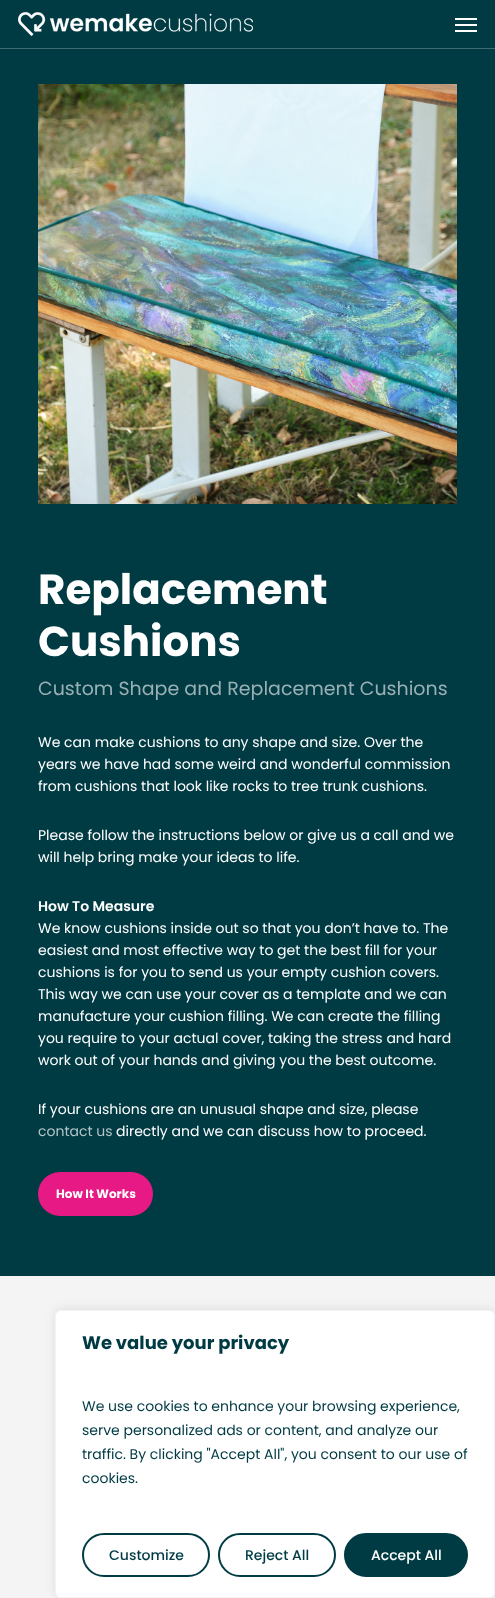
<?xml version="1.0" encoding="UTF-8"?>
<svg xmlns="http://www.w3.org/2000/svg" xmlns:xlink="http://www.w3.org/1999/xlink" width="495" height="1598">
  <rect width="100%" height="100%" fill="#003b44" />
  <rect y="48" width="495" height="1" fill="#406b72" />
  <image x="18" y="12" width="235" height="24" xlink:href="image1.png" />
  <rect x="455" y="18" width="22" height="2" fill="#ffffff" />
  <rect x="455" y="30" width="22" height="2" fill="#ffffff" />
  <rect x="455" y="24" width="22" height="2" fill="#ffffff" />
  <image x="38" y="84" width="419" height="420" xlink:href="image2.png" />
  <rect x="38" y="1172" width="115" height="44" rx="22" fill="#e71984" />
  <rect y="1276" width="495" height="322" fill="#f4f4f4" />
  <rect x="55" y="1309" width="440" height="288" rx="6" fill="#acabab" fill-opacity="0.3" filter="blur(5px)" />
  <rect x="55.5" y="1310.5" width="439" height="287" rx="5.5" fill="#ffffff" stroke="#f4f4f4" />
  <rect x="83" y="1534" width="126" height="42" rx="21" fill="none" stroke="#003b44" stroke-width="2" />
  <rect x="219" y="1534" width="116" height="42" rx="21" fill="none" stroke="#003b44" stroke-width="2" />
  <rect x="345" y="1534" width="122" height="42" rx="21" fill="#003b44" stroke="#003b44" stroke-width="2" />
  <text x="38" y="604" style="font-family: Poppins; font-size: 42px; font-weight: bold; fill: #ffffff">Replacement</text>
  <text x="38" y="656" style="font-family: Poppins; font-size: 42px; font-weight: bold; fill: #ffffff">Cushions</text>
  <text x="38" y="695" style="font-family: Poppins; font-size: 19px; fill: #99b1b4">Custom Shape and Replacement Cushions</text>
  <text x="38" y="747" style="font-family: Poppins; font-size: 14px; fill: #ffffff">We can make cushions to any shape and size. Over the</text>
  <text x="38" y="769" style="font-family: Poppins; font-size: 14px; fill: #ffffff">years we have had some weird and wonderful commission</text>
  <text x="38" y="791" style="font-family: Poppins; font-size: 14px; fill: #ffffff">from cushions that look like rocks to tree trunk cushions.</text>
  <text x="38" y="840" style="font-family: Poppins; font-size: 14px; fill: #ffffff">Please follow the instructions below or give us a call and we</text>
  <text x="38" y="862" style="font-family: Poppins; font-size: 14px; fill: #ffffff">will help bring make your ideas to life.</text>
  <text x="38" y="911" style="font-family: Poppins; font-size: 14px; font-weight: 600; fill: #ffffff">How To Measure</text>
  <text x="38" y="933" style="font-family: Poppins; font-size: 14px; fill: #ffffff">We know cushions inside out so that you don’t have to. The</text>
  <text x="38" y="955" style="font-family: Poppins; font-size: 14px; fill: #ffffff">easiest and most effective way to get the best fill for your</text>
  <text x="38" y="977" style="font-family: Poppins; font-size: 14px; fill: #ffffff">cushions is for you to send us your empty cushion covers.</text>
  <text x="38" y="999" style="font-family: Poppins; font-size: 14px; fill: #ffffff">This way we can use your cover as a template and we can</text>
  <text x="38" y="1021" style="font-family: Poppins; font-size: 14px; fill: #ffffff">manufacture your cushion filling. We can create the filling</text>
  <text x="38" y="1043" style="font-family: Poppins; font-size: 14px; fill: #ffffff">you require to your actual cover, taking the stress and hard</text>
  <text x="38" y="1065" style="font-family: Poppins; font-size: 14px; fill: #ffffff">work out of your hands and giving you the best outcome.</text>
  <text x="38" y="1114" style="font-family: Poppins; font-size: 14px; fill: #ffffff">If your cushions are an unusual shape and size, please</text>
  <text x="38" y="1136" style="font-family: Poppins; font-size: 14px; fill: #b3c4c7">contact us</text>
  <text x="116" y="1136" style="font-family: Poppins; font-size: 14px; fill: #ffffff">directly and we can discuss how to proceed.</text>
  <text x="56" y="1198" style="font-family: Poppins; font-size: 12px; font-weight: bold; fill: #ffffff">How It Works</text>
  <text x="82" y="1349" style="font-family: Poppins; font-size: 18px; font-weight: bold; fill: #003b44">We value your privacy</text>
  <text x="82" y="1411" style="font-family: Poppins; font-size: 14px; fill: #003b44">We use cookies to enhance your browsing experience,</text>
  <text x="82" y="1435" style="font-family: Poppins; font-size: 14px; fill: #003b44">serve personalized ads or content, and analyze our</text>
  <text x="82" y="1459" style="font-family: Poppins; font-size: 14px; fill: #003b44">traffic. By clicking "Accept All", you consent to our use of</text>
  <text x="82" y="1483" style="font-family: Poppins; font-size: 14px; fill: #003b44">cookies.</text>
  <text x="109" y="1560" style="font-family: Poppins; font-size: 14px; font-weight: 500; fill: #003b44">Customize</text>
  <text x="245" y="1560" style="font-family: Poppins; font-size: 14px; font-weight: 500; fill: #003b44">Reject All</text>
  <text x="371" y="1560" style="font-family: Poppins; font-size: 14px; font-weight: 500; fill: #ffffff">Accept All</text>
</svg>
